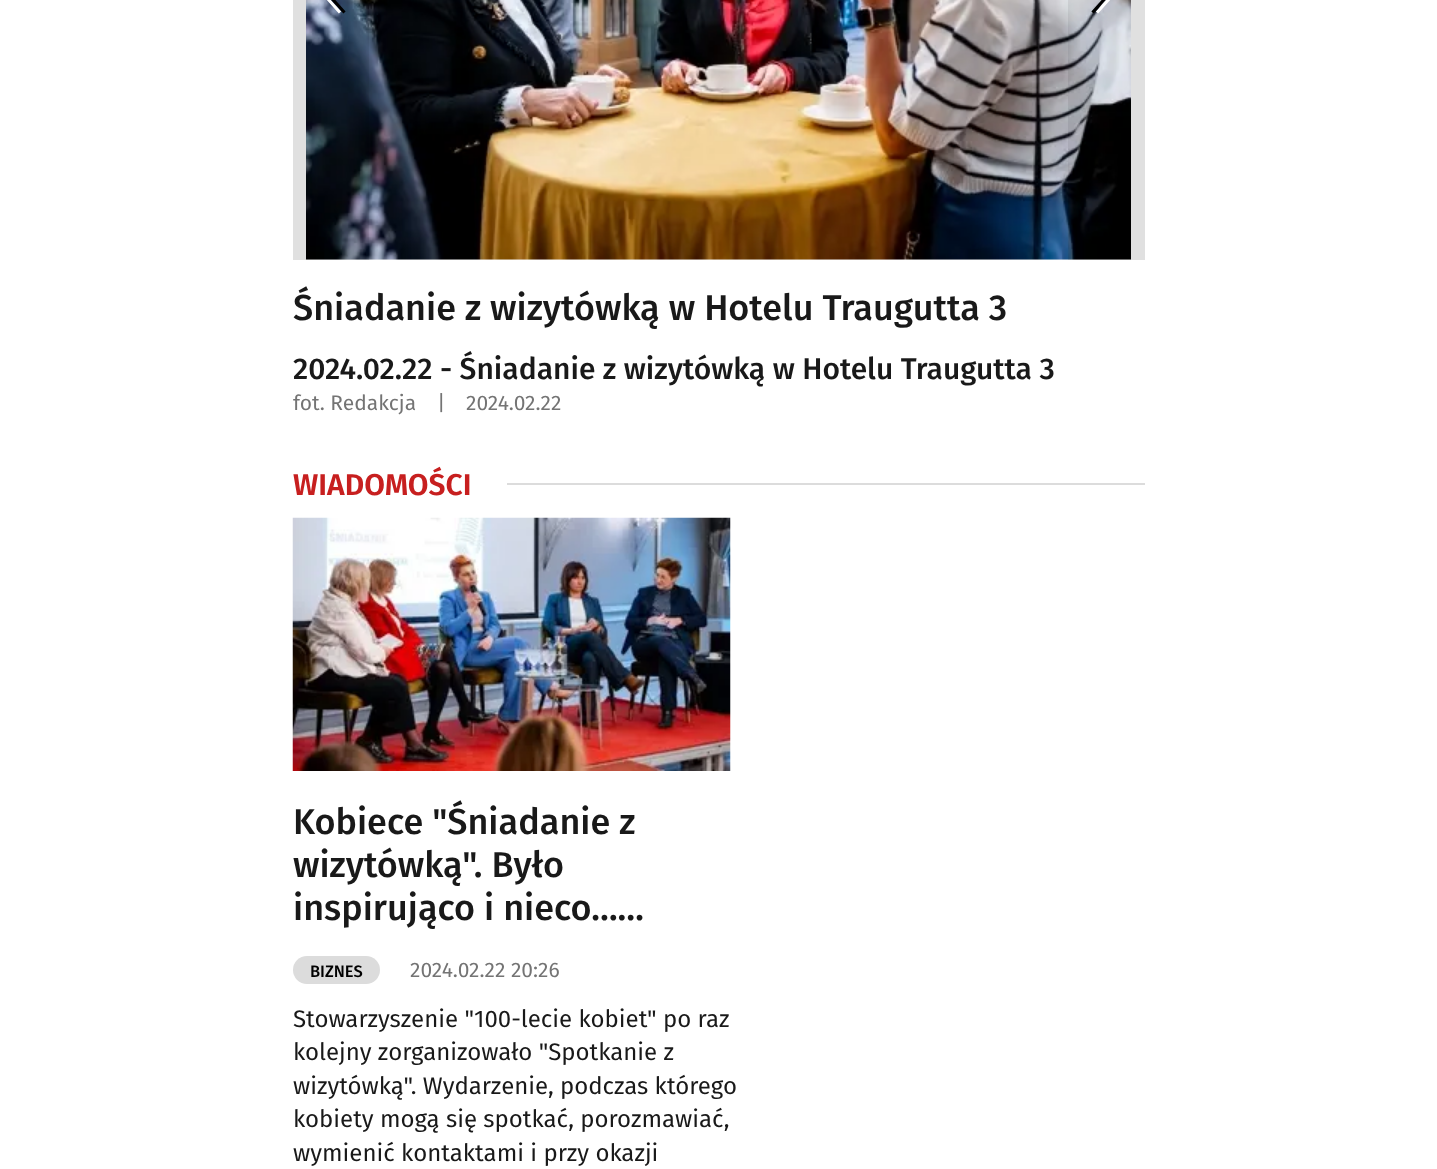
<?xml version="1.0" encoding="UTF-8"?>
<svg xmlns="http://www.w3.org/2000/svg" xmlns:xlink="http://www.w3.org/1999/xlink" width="1437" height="1169">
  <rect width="100%" height="100%" fill="#ffffff" />
  <rect x="293" width="852" height="260" fill="#f2f2f2" />
  <image x="306" y="0" width="825" height="260" xlink:href="image1.png" />
  <rect x="293" width="76" height="260" fill="#000000" fill-opacity="0.07" />
  <path d="M 340 12.5 l -25.5 -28.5 l 28 -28" fill="none" stroke="#ffffff" stroke-width="3" />
  <path d="M 344.5 12.5 l -25.5 -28.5 l 28 -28" fill="none" stroke="#000000" stroke-width="3" />
  <rect x="1068" width="77" height="260" fill="#000000" fill-opacity="0.07" />
  <path d="M 1097 12.5 l 25.5 -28.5 l -28 -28" fill="none" stroke="#ffffff" stroke-width="3" />
  <path d="M 1092.5 12.5 l 25.5 -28.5 l -28 -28" fill="none" stroke="#000000" stroke-width="3" />
  <rect x="507" y="483" width="638" height="2" fill="#dcdcdc" />
  <image x="292" y="517" width="439" height="254" xlink:href="image2.png" />
  <rect x="293" y="956" width="87" height="28" rx="14" fill="#dcdcdc" />
  <text x="293" y="320" style="font-family: Fira Sans; font-size: 36px; font-weight: 500; fill: #191919">Śniadanie z wizytówką w Hotelu Traugutta 3</text>
  <text x="293" y="379" style="font-family: Fira Sans; font-size: 30px; font-weight: 500; fill: #191919">2024.02.22 - Śniadanie z wizytówką w Hotelu Traugutta 3</text>
  <text x="293" y="410" style="font-family: Fira Sans; font-size: 21px; fill: #747474">fot. Redakcja</text>
  <text x="437" y="410" style="font-family: Fira Sans; font-size: 21px; fill: #747474">|</text>
  <text x="466" y="410" style="font-family: Fira Sans; font-size: 21px; fill: #747474">2024.02.22</text>
  <text x="293" y="495" style="font-family: Fira Sans; font-size: 30px; font-weight: 600; fill: #c71f1f">WIADOMOŚCI</text>
  <text x="293" y="834" style="font-family: Fira Sans; font-size: 36px; font-weight: 500; fill: #191919">Kobiece "Śniadanie z</text>
  <text x="293" y="877" style="font-family: Fira Sans; font-size: 36px; font-weight: 500; fill: #191919">wizytówką". Było</text>
  <text x="293" y="920" style="font-family: Fira Sans; font-size: 36px; font-weight: 500; fill: #191919">inspirująco i nieco……</text>
  <text x="310" y="977" style="font-family: Fira Sans; font-size: 16.5px; font-weight: 500; fill: #000000">BIZNES</text>
  <text x="410" y="977" style="font-family: Fira Sans; font-size: 21px; fill: #747474">2024.02.22 20:26</text>
  <text x="293" y="1027" style="font-family: Fira Sans; font-size: 24px; fill: #191919">Stowarzyszenie "100-lecie kobiet" po raz</text>
  <text x="293" y="1060" style="font-family: Fira Sans; font-size: 24px; fill: #191919">kolejny zorganizowało "Spotkanie z</text>
  <text x="293" y="1094" style="font-family: Fira Sans; font-size: 24px; fill: #191919">wizytówką". Wydarzenie, podczas którego</text>
  <text x="293" y="1127" style="font-family: Fira Sans; font-size: 24px; fill: #191919">kobiety mogą się spotkać, porozmawiać,</text>
  <text x="293" y="1161" style="font-family: Fira Sans; font-size: 24px; fill: #191919">wymienić kontaktami i przy okazji</text>
</svg>
